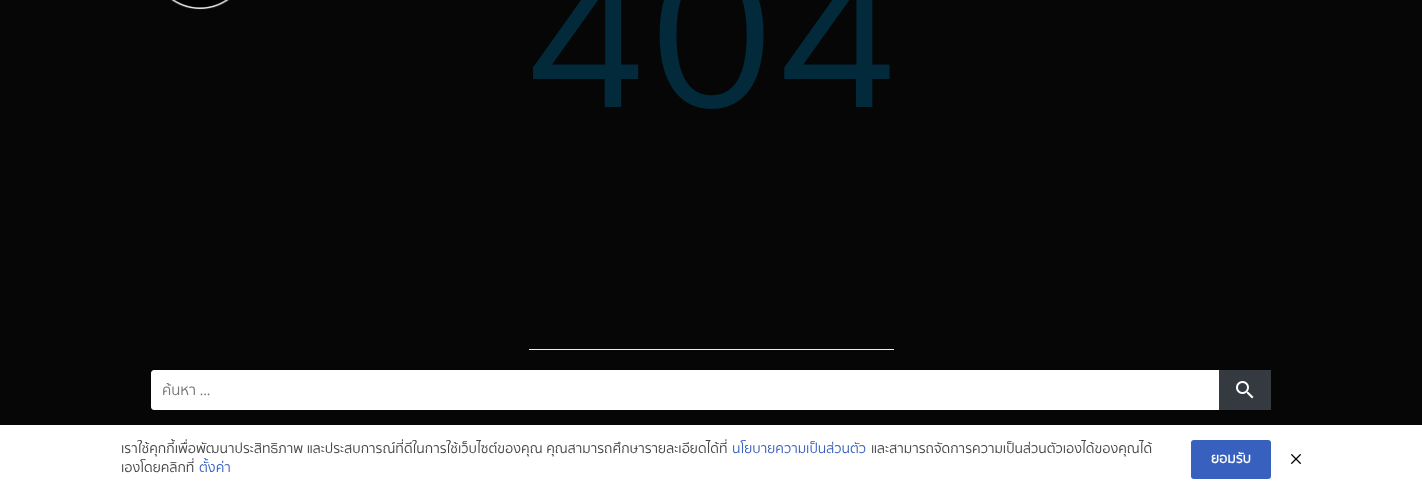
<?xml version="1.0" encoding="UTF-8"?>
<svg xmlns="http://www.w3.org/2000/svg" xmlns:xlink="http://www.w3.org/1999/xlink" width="1422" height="494">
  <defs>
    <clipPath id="clip1"><rect x="162" y="378" width="1068" height="24" /></clipPath>
  </defs>
  <rect width="100%" height="100%" fill="#060606" />
  <rect x="529" y="349" width="365" height="1" fill="#eeeeee" />
  <rect x="151.5" y="370.5" width="1119" height="39" rx="2.5" fill="#ffffff" stroke="#ffffff" />
  <rect x="1219" y="370" width="52" height="40" fill="#343a40" />
  <image x="1236" y="381" width="18" height="18" xlink:href="image1.png" />
  <image x="171" y="0" width="59" height="10" xlink:href="image2.png" />
  <rect y="425" width="1422" height="69" fill="#ffffff" />
  <rect x="1191" y="440" width="80" height="39" rx="3" fill="#3860be" />
  <image x="1291" y="454" width="10" height="10" xlink:href="image3.png" />
  <text x="523" y="107" style="font-family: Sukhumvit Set; font-size: 222px; fill: #022a3b">404</text>
  <g clip-path="url(#clip1)">
    <text x="162" y="395" style="font-family: Sukhumvit Set; font-size: 15px; fill: #757575">ค้นหา …</text>
  </g>
  <text x="121" y="453" style="font-family: Sukhumvit Set; font-size: 14px; fill: #444444">เราใช้คุกกี้เพื่อพัฒนาประสิทธิภาพ และประสบการณ์ที่ดีในการใช้เว็บไซต์ของคุณ คุณสามารถศึกษารายละเอียดได้ที่</text>
  <text x="732" y="453" style="font-family: Sukhumvit Set; font-size: 14px; fill: #3860be">นโยบายความเป็นส่วนตัว</text>
  <text x="871" y="453" style="font-family: Sukhumvit Set; font-size: 14px; fill: #444444">และสามารถจัดการความเป็นส่วนตัวเองได้ของคุณได้</text>
  <text x="121" y="472" style="font-family: Sukhumvit Set; font-size: 14px; fill: #444444">เองโดยคลิกที่</text>
  <text x="199" y="472" style="font-family: Sukhumvit Set; font-size: 14px; fill: #3860be">ตั้งค่า</text>
  <text x="1211" y="463" style="font-family: Sukhumvit Set; font-size: 14px; font-weight: bold; fill: #ffffff">ยอมรับ</text>
</svg>
